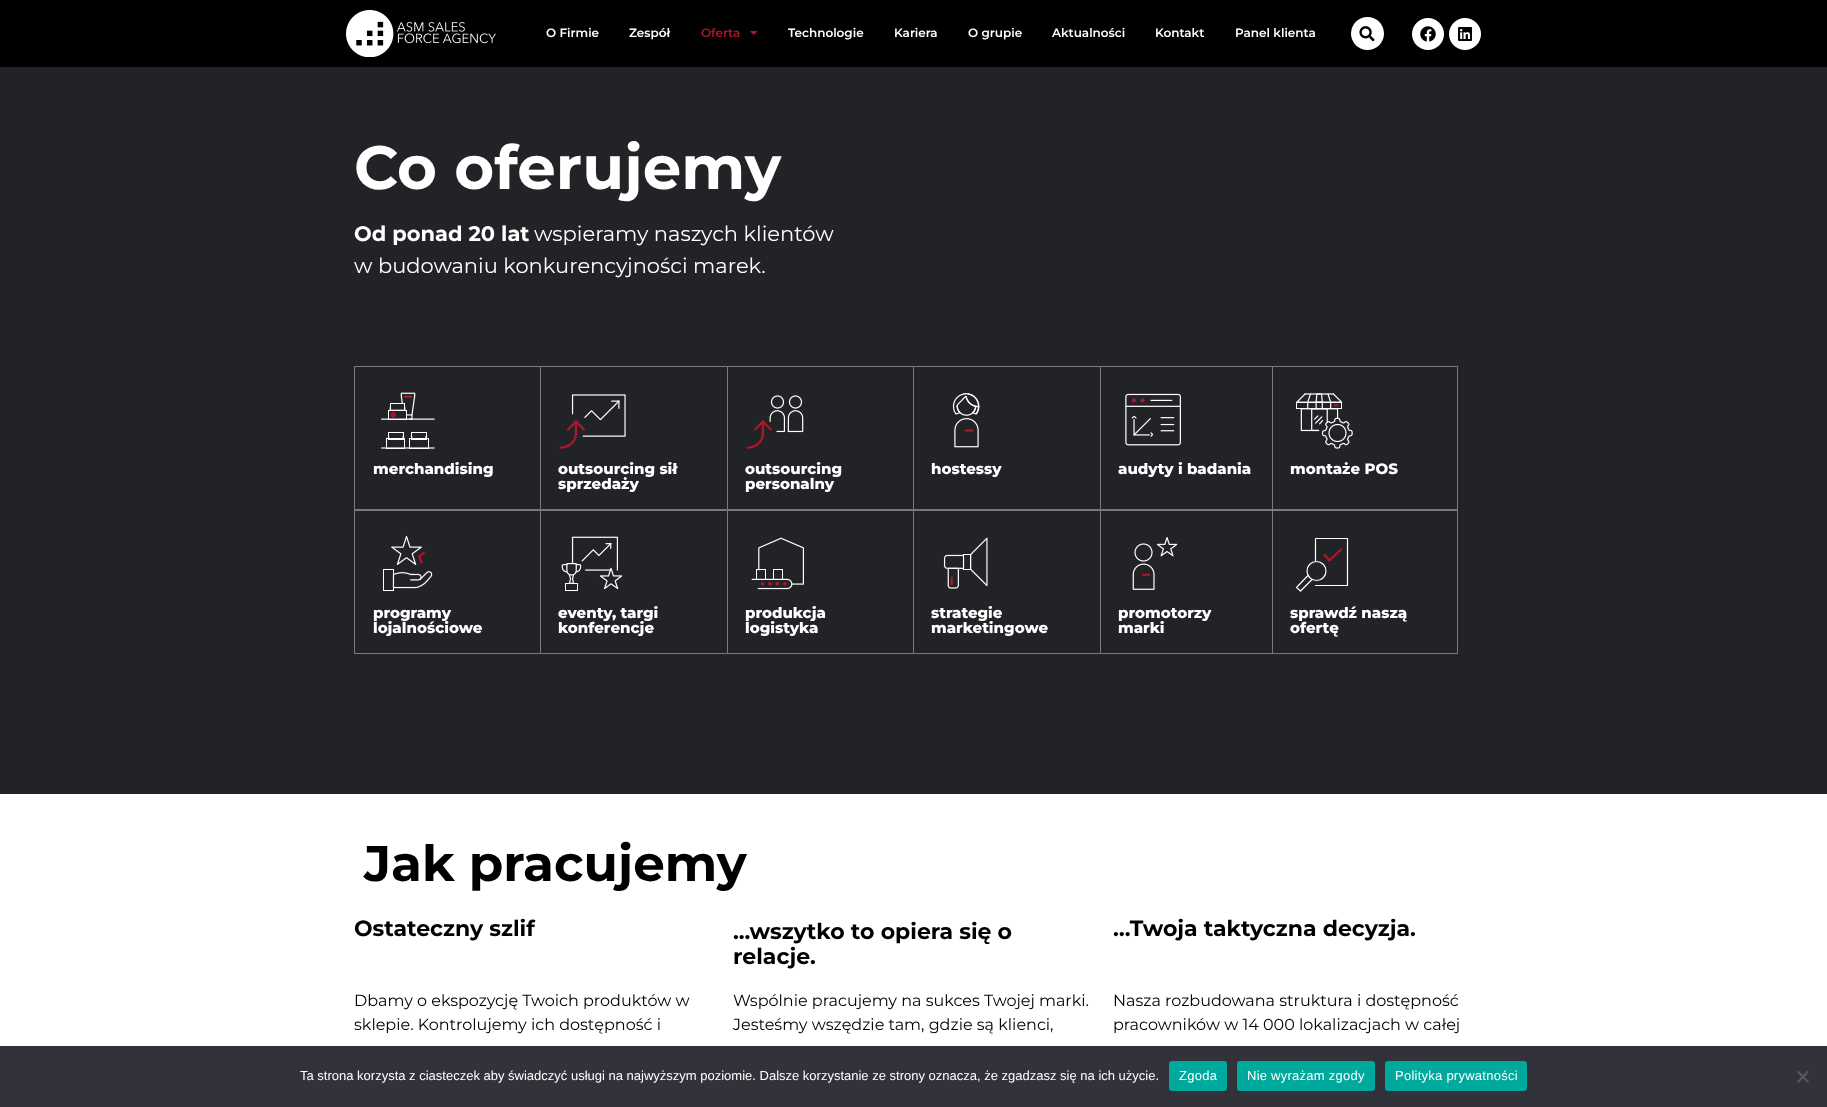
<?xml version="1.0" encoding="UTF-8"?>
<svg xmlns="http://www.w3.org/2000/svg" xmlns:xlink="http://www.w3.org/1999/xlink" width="1827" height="1107">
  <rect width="100%" height="100%" fill="#ffffff" />
  <rect width="1827" height="67" fill="#000000" />
  <image x="346" y="10" width="150" height="47" xlink:href="image1.png" />
  <image x="750" y="31" width="8" height="4" xlink:href="image2.png" />
  <circle cx="1367.5" cy="33.5" r="16.5" fill="#ffffff" />
  <image x="1359" y="26" width="16" height="16" xlink:href="image3.png" />
  <circle cx="1428" cy="34" r="16" fill="#ffffff" />
  <image x="1420" y="26" width="16" height="16" xlink:href="image4.png" />
  <circle cx="1465" cy="34" r="16" fill="#ffffff" />
  <image x="1458" y="27" width="14" height="14" xlink:href="image5.png" />
  <rect y="67" width="1827" height="727" fill="#212326" />
  <path d="M 354 366 h 186 v 1 h -185 z" fill="#7a7b7d" />
  <path d="M 540 510 h -186 l 1 -1 h 185 z" fill="#7a7b7d" />
  <path d="M 354 510 v -144 l 1 1 v 142 z" fill="#ffffff" fill-opacity="0.4" />
  <image x="381" y="392" width="54" height="57" xlink:href="image6.png" />
  <path d="M 540 366 h 187 v 1 h -186 z" fill="#7a7b7d" />
  <path d="M 727 510 h -187 l 1 -1 h 186 z" fill="#7a7b7d" />
  <path d="M 540 510 v -144 l 1 1 v 142 z" fill="#ffffff" fill-opacity="0.4" />
  <image x="559" y="394" width="67" height="55" xlink:href="image7.png" />
  <path d="M 727 366 h 186 v 1 h -185 z" fill="#7a7b7d" />
  <path d="M 913 510 h -186 l 1 -1 h 185 z" fill="#7a7b7d" />
  <path d="M 727 510 v -144 l 1 1 v 142 z" fill="#ffffff" fill-opacity="0.4" />
  <image x="746" y="395" width="58" height="54" xlink:href="image8.png" />
  <path d="M 913 366 h 187 v 1 h -186 z" fill="#7a7b7d" />
  <path d="M 1100 510 h -187 l 1 -1 h 186 z" fill="#7a7b7d" />
  <path d="M 913 510 v -144 l 1 1 v 142 z" fill="#ffffff" fill-opacity="0.4" />
  <image x="952" y="393" width="28" height="55" xlink:href="image9.png" />
  <path d="M 1100 366 h 172 v 1 h -171 z" fill="#7a7b7d" />
  <path d="M 1272 510 h -172 l 1 -1 h 171 z" fill="#7a7b7d" />
  <path d="M 1100 510 v -144 l 1 1 v 142 z" fill="#ffffff" fill-opacity="0.4" />
  <image x="1125" y="393" width="56" height="53" xlink:href="image10.png" />
  <rect x="1272.5" y="366.5" width="185" height="143" fill="none" stroke="#7a7b7d" />
  <image x="1296" y="393" width="57" height="56" xlink:href="image11.png" />
  <path d="M 354 510 h 186 v 1 h -185 z" fill="#7a7b7d" />
  <path d="M 540 654 h -186 l 1 -1 h 185 z" fill="#7a7b7d" />
  <path d="M 354 654 v -144 l 1 1 v 142 z" fill="#ffffff" fill-opacity="0.4" />
  <image x="383" y="535" width="50" height="56" xlink:href="image12.png" />
  <path d="M 540 510 h 187 v 1 h -186 z" fill="#7a7b7d" />
  <path d="M 727 654 h -187 l 1 -1 h 186 z" fill="#7a7b7d" />
  <path d="M 540 654 v -144 l 1 1 v 142 z" fill="#ffffff" fill-opacity="0.4" />
  <image x="561" y="536" width="62" height="55" xlink:href="image13.png" />
  <path d="M 727 510 h 186 v 1 h -185 z" fill="#7a7b7d" />
  <path d="M 913 654 h -186 l 1 -1 h 185 z" fill="#7a7b7d" />
  <path d="M 727 654 v -144 l 1 1 v 142 z" fill="#ffffff" fill-opacity="0.4" />
  <image x="751" y="537" width="53" height="53" xlink:href="image14.png" />
  <path d="M 913 510 h 187 v 1 h -186 z" fill="#7a7b7d" />
  <path d="M 1100 654 h -187 l 1 -1 h 186 z" fill="#7a7b7d" />
  <path d="M 913 654 v -144 l 1 1 v 142 z" fill="#ffffff" fill-opacity="0.4" />
  <image x="943" y="537" width="45" height="52" xlink:href="image15.png" />
  <path d="M 1100 510 h 172 v 1 h -171 z" fill="#7a7b7d" />
  <path d="M 1272 654 h -172 l 1 -1 h 171 z" fill="#7a7b7d" />
  <path d="M 1100 654 v -144 l 1 1 v 142 z" fill="#ffffff" fill-opacity="0.4" />
  <image x="1132" y="537" width="46" height="53" xlink:href="image16.png" />
  <rect x="1272.5" y="510.5" width="185" height="143" fill="none" stroke="#7a7b7d" />
  <path d="M 1315.5 561 v -22.5 h 32 v 47 h -32" fill="none" stroke="#ffffff" stroke-width="1.2" stroke-linecap="round" stroke-linejoin="round" />
  <path d="M 1324.5 555 l 5 5.5 l 11.5 -11" fill="none" stroke="#ad182b" stroke-width="2.2" stroke-linecap="round" stroke-linejoin="round" />
  <circle cx="1316.5" cy="571" r="9.5" fill="none" stroke="#ffffff" stroke-width="1.2" />
  <path d="M 1311.5 580 l -11 11 l -4 -3.5 l 11 -11.5" fill="none" stroke="#ffffff" stroke-width="1.2" stroke-linecap="round" stroke-linejoin="round" />
  <rect y="1046" width="1827" height="61" fill="#32323a" />
  <rect x="1169" y="1061" width="58" height="30" rx="3" fill="#00a99d" />
  <rect x="1237" y="1061" width="138" height="30" rx="3" fill="#00a99d" />
  <rect x="1385" y="1061" width="142" height="30" rx="3" fill="#00a99d" />
  <path d="M 1807.5 1070.5 l 1.5 1.5 l -10.5 11 l -1.5 -1.5 z" fill="#59595d" />
  <path d="M 1797 1072 l 1.5 -1.5 l 10.5 11 l -1.5 1.5 z" fill="#59595d" />
  <text x="546" y="37" style="font-family: Montserrat; font-size: 12px; font-weight: 600; fill: #ffffff">O Firmie</text>
  <text x="629" y="37" style="font-family: Montserrat; font-size: 12px; font-weight: 600; fill: #ffffff">Zespół</text>
  <text x="701" y="37" style="font-family: Montserrat; font-size: 12px; font-weight: 600; fill: #ac182a">Oferta</text>
  <text x="788" y="37" style="font-family: Montserrat; font-size: 12px; font-weight: 600; fill: #ffffff">Technologie</text>
  <text x="894" y="37" style="font-family: Montserrat; font-size: 12px; font-weight: 600; fill: #ffffff">Kariera</text>
  <text x="968" y="37" style="font-family: Montserrat; font-size: 12px; font-weight: 600; fill: #ffffff">O grupie</text>
  <text x="1052" y="37" style="font-family: Montserrat; font-size: 12px; font-weight: 600; fill: #ffffff">Aktualności</text>
  <text x="1155" y="37" style="font-family: Montserrat; font-size: 12px; font-weight: 600; fill: #ffffff">Kontakt</text>
  <text x="1235" y="37" style="font-family: Montserrat; font-size: 12px; font-weight: 600; fill: #ffffff">Panel klienta</text>
  <text x="354" y="189" style="font-family: Montserrat; font-size: 61px; font-weight: bold; fill: #ffffff">Co oferujemy</text>
  <text x="354" y="241" style="font-family: Montserrat; font-size: 21px; font-weight: bold; fill: #ffffff">Od ponad 20 lat</text>
  <text x="534" y="241" style="font-family: Montserrat; font-size: 21px; fill: #ffffff">wspieramy naszych klientów</text>
  <text x="354" y="273" style="font-family: Montserrat; font-size: 21px; fill: #ffffff">w budowaniu konkurencyjności marek.</text>
  <text x="373" y="474" style="font-family: Montserrat; font-size: 15px; font-weight: 800; fill: #ffffff">merchandising</text>
  <text x="558" y="474" style="font-family: Montserrat; font-size: 15px; font-weight: 800; fill: #ffffff">outsourcing sił</text>
  <text x="558" y="489" style="font-family: Montserrat; font-size: 15px; font-weight: 800; fill: #ffffff">sprzedaży</text>
  <text x="745" y="474" style="font-family: Montserrat; font-size: 15px; font-weight: 800; fill: #ffffff">outsourcing</text>
  <text x="745" y="489" style="font-family: Montserrat; font-size: 15px; font-weight: 800; fill: #ffffff">personalny</text>
  <text x="931" y="474" style="font-family: Montserrat; font-size: 15px; font-weight: 800; fill: #ffffff">hostessy</text>
  <text x="1118" y="474" style="font-family: Montserrat; font-size: 15px; font-weight: 800; fill: #ffffff">audyty i badania</text>
  <text x="1290" y="474" style="font-family: Montserrat; font-size: 15px; font-weight: 800; fill: #ffffff">montaże POS</text>
  <text x="373" y="618" style="font-family: Montserrat; font-size: 15px; font-weight: 800; fill: #ffffff">programy</text>
  <text x="373" y="633" style="font-family: Montserrat; font-size: 15px; font-weight: 800; fill: #ffffff">lojalnościowe</text>
  <text x="558" y="618" style="font-family: Montserrat; font-size: 15px; font-weight: 800; fill: #ffffff">eventy, targi</text>
  <text x="558" y="633" style="font-family: Montserrat; font-size: 15px; font-weight: 800; fill: #ffffff">konferencje</text>
  <text x="745" y="618" style="font-family: Montserrat; font-size: 15px; font-weight: 800; fill: #ffffff">produkcja</text>
  <text x="745" y="633" style="font-family: Montserrat; font-size: 15px; font-weight: 800; fill: #ffffff">logistyka</text>
  <text x="931" y="618" style="font-family: Montserrat; font-size: 15px; font-weight: 800; fill: #ffffff">strategie</text>
  <text x="931" y="633" style="font-family: Montserrat; font-size: 15px; font-weight: 800; fill: #ffffff">marketingowe</text>
  <text x="1118" y="618" style="font-family: Montserrat; font-size: 15px; font-weight: 800; fill: #ffffff">promotorzy</text>
  <text x="1118" y="633" style="font-family: Montserrat; font-size: 15px; font-weight: 800; fill: #ffffff">marki</text>
  <text x="1290" y="618" style="font-family: Montserrat; font-size: 15px; font-weight: 800; fill: #ffffff">sprawdź naszą</text>
  <text x="1290" y="633" style="font-family: Montserrat; font-size: 15px; font-weight: 800; fill: #ffffff">ofertę</text>
  <text x="364" y="881" style="font-family: Montserrat; font-size: 50px; font-weight: bold; fill: #000000">Jak pracujemy</text>
  <text x="354" y="936" style="font-family: Montserrat; font-size: 22px; font-weight: bold; fill: #000000">Ostateczny szlif</text>
  <text x="733" y="939" style="font-family: Montserrat; font-size: 22px; font-weight: bold; fill: #000000">...wszytko to opiera się o</text>
  <text x="733" y="964" style="font-family: Montserrat; font-size: 22px; font-weight: bold; fill: #000000">relacje.</text>
  <text x="1113" y="936" style="font-family: Montserrat; font-size: 22px; font-weight: bold; fill: #000000">…Twoja taktyczna decyzja.</text>
  <text x="354" y="1006" style="font-family: Montserrat; font-size: 16px; fill: #000000">Dbamy o ekspozycję Twoich produktów w</text>
  <text x="354" y="1030" style="font-family: Montserrat; font-size: 16px; fill: #000000">sklepie. Kontrolujemy ich dostępność i</text>
  <text x="733" y="1006" style="font-family: Montserrat; font-size: 16px; fill: #000000">Wspólnie pracujemy na sukces Twojej marki.</text>
  <text x="733" y="1030" style="font-family: Montserrat; font-size: 16px; fill: #000000">Jesteśmy wszędzie tam, gdzie są klienci,</text>
  <text x="1113" y="1006" style="font-family: Montserrat; font-size: 16px; fill: #000000">Nasza rozbudowana struktura i dostępność</text>
  <text x="1113" y="1030" style="font-family: Montserrat; font-size: 16px; fill: #000000">pracowników w 14 000 lokalizacjach w całej</text>
  <text x="300" y="1080" style="font-family: Liberation Sans; font-size: 13px; fill: #ffffff">Ta strona korzysta z ciasteczek aby świadczyć usługi na najwyższym poziomie. Dalsze korzystanie ze strony oznacza, że zgadzasz się na ich użycie.</text>
  <text x="1179" y="1080" style="font-family: Liberation Sans; font-size: 13px; letter-spacing: 0.25px; fill: #ffffff">Zgoda</text>
  <text x="1247" y="1080" style="font-family: Liberation Sans; font-size: 13px; letter-spacing: 0.25px; fill: #ffffff">Nie wyrażam zgody</text>
  <text x="1395" y="1080" style="font-family: Liberation Sans; font-size: 13px; letter-spacing: 0.25px; fill: #ffffff">Polityka prywatności</text>
</svg>
